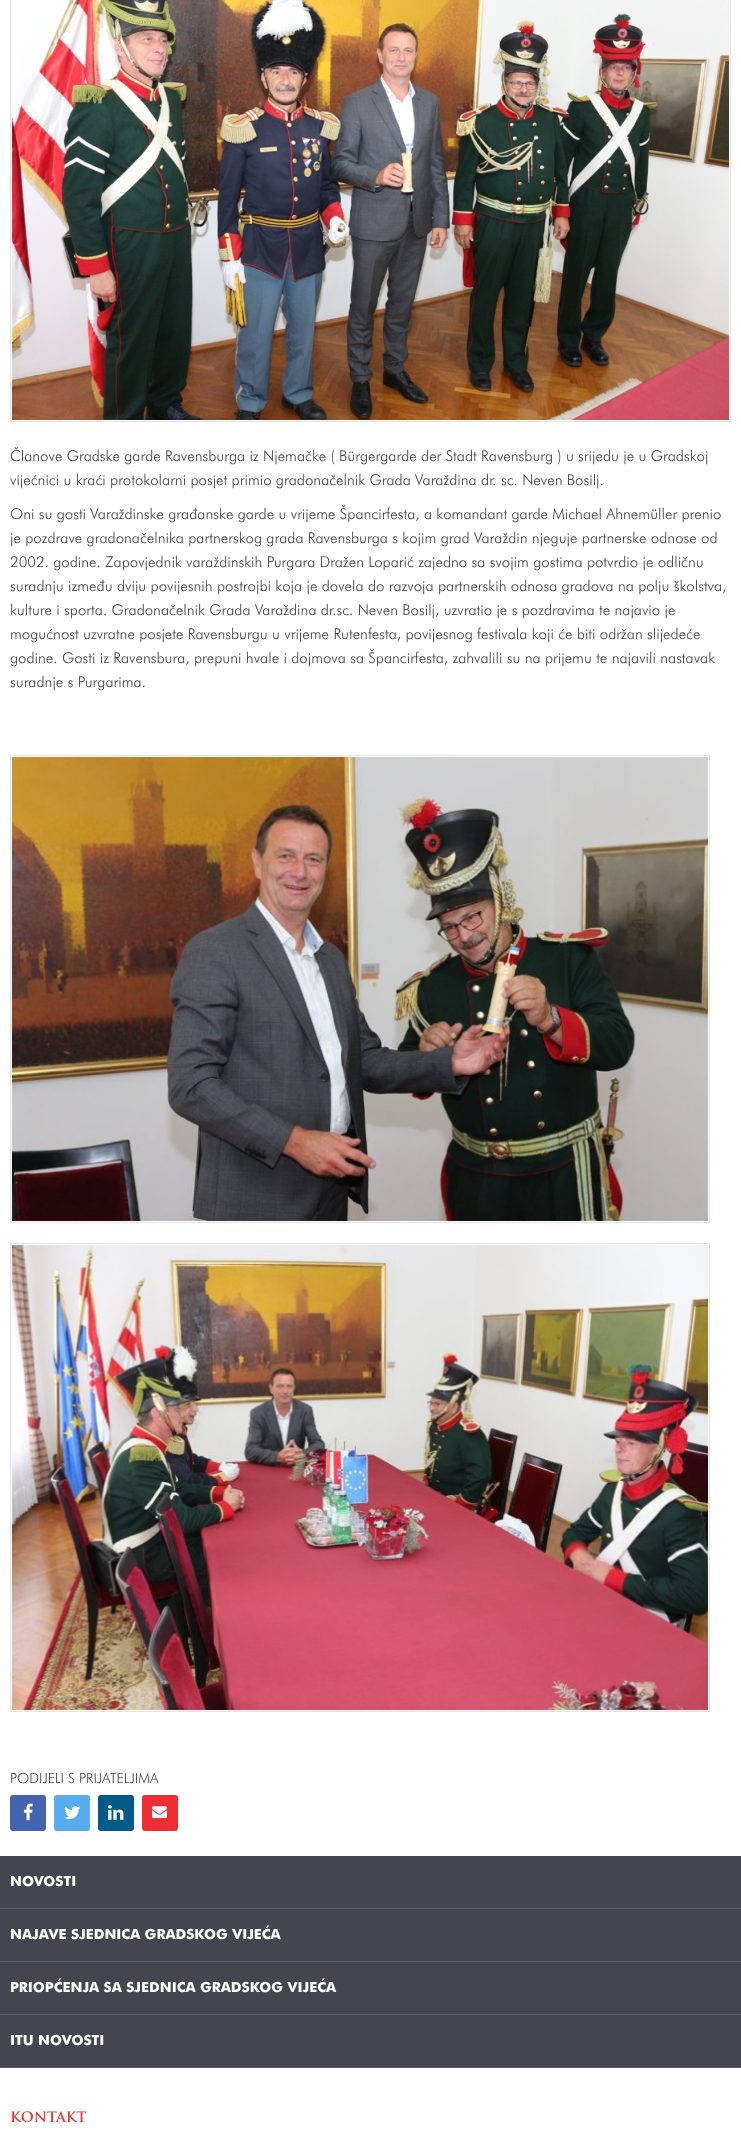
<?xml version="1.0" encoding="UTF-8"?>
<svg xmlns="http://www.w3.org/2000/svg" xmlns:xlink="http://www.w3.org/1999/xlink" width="741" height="2130">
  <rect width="100%" height="100%" fill="#ffffff" />
  <rect x="10.5" y="-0.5" width="720" height="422" fill="none" stroke="#e2e2e2" />
  <image x="12" y="0" width="717" height="420" xlink:href="image1.png" />
  <rect x="10.5" y="755.5" width="699" height="467" fill="none" stroke="#e2e2e2" />
  <image x="12" y="757" width="696" height="464" xlink:href="image2.png" />
  <rect x="10.5" y="1243.5" width="699" height="468" fill="none" stroke="#e2e2e2" />
  <image x="12" y="1245" width="696" height="465" xlink:href="image3.png" />
  <rect x="10" y="1795" width="36" height="36" rx="3" fill="#4463b1" />
  <image x="23" y="1803" width="10" height="18" xlink:href="image4.png" />
  <rect x="54" y="1795" width="36" height="36" rx="3" fill="#56acee" />
  <image x="64" y="1806" width="17" height="13" xlink:href="image5.png" />
  <rect x="98" y="1795" width="36" height="36" rx="3" fill="#005a87" />
  <image x="108" y="1805" width="16" height="15" xlink:href="image6.png" />
  <rect x="142" y="1795" width="36" height="36" rx="3" fill="#ee2e30" />
  <image x="152" y="1806" width="15" height="13" xlink:href="image7.png" />
  <rect y="1856" width="741" height="211" fill="#44464f" />
  <rect y="1908" width="741" height="1" fill="#575a67" />
  <rect y="1961" width="741" height="1" fill="#575a67" />
  <rect y="2014" width="741" height="1" fill="#575a67" />
  <rect y="2067" width="741" height="1" fill="#575a67" />
  <text x="10" y="461" style="font-family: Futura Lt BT; font-size: 15px; font-weight: 300; fill: #44464f">Članove Gradske garde Ravensburga iz Njemačke ( Bürgergarde der Stadt Ravensburg ) u srijedu je u Gradskoj</text>
  <text x="10" y="485" style="font-family: Futura Lt BT; font-size: 15px; font-weight: 300; fill: #44464f">vijećnici u kraći protokolarni posjet primio gradonačelnik Grada Varaždina dr. sc. Neven Bosilj.</text>
  <text x="10" y="519" style="font-family: Futura Lt BT; font-size: 15px; font-weight: 300; fill: #44464f">Oni su gosti Varaždinske građanske garde u vrijeme Špancirfesta, a komandant garde Michael Ahnemüller prenio</text>
  <text x="10" y="543" style="font-family: Futura Lt BT; font-size: 15px; font-weight: 300; fill: #44464f">je pozdrave gradonačelnika partnerskog grada Ravensburga s kojim grad Varaždin njeguje partnerske odnose od</text>
  <text x="10" y="567" style="font-family: Futura Lt BT; font-size: 15px; font-weight: 300; fill: #44464f">2002. godine. Zapovjednik varaždinskih Purgara Dražen Loparić zajedno sa svojim gostima potvrdio je odličnu</text>
  <text x="10" y="591" style="font-family: Futura Lt BT; font-size: 15px; font-weight: 300; fill: #44464f">suradnju između dviju povijesnih postrojbi koja je dovela do razvoja partnerskih odnosa gradova na polju školstva,</text>
  <text x="10" y="615" style="font-family: Futura Lt BT; font-size: 15px; font-weight: 300; fill: #44464f">kulture i sporta. Gradonačelnik Grada Varaždina dr.sc. Neven Bosilj, uzvratio je s pozdravima te najavio je</text>
  <text x="10" y="639" style="font-family: Futura Lt BT; font-size: 15px; font-weight: 300; fill: #44464f">mogućnost uzvratne posjete Ravensburgu u vrijeme Rutenfesta, povijesnog festivala koji će biti održan slijedeće</text>
  <text x="10" y="663" style="font-family: Futura Lt BT; font-size: 15px; font-weight: 300; fill: #44464f">godine. Gosti iz Ravensbura, prepuni hvale i dojmova sa Špancirfesta, zahvalili su na prijemu te najavili nastavak</text>
  <text x="10" y="687" style="font-family: Futura Lt BT; font-size: 15px; font-weight: 300; fill: #44464f">suradnje s Purgarima.</text>
  <text x="10" y="1783" style="font-family: Futura Lt BT; font-size: 14px; font-weight: 300; fill: #44464f">PODIJELI S PRIJATELJIMA</text>
  <text x="10" y="1886" style="font-family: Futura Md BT; font-size: 14px; font-weight: bold; fill: #ffffff">NOVOSTI</text>
  <text x="10" y="1939" style="font-family: Futura Md BT; font-size: 14px; font-weight: bold; fill: #ffffff">NAJAVE SJEDNICA GRADSKOG VIJEĆA</text>
  <text x="10" y="1992" style="font-family: Futura Md BT; font-size: 14px; font-weight: bold; fill: #ffffff">PRIOPĆENJA SA SJEDNICA GRADSKOG VIJEĆA</text>
  <text x="10" y="2045" style="font-family: Futura Md BT; font-size: 14px; font-weight: bold; fill: #ffffff">ITU NOVOSTI</text>
  <text x="10" y="2122" style="font-family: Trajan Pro; font-size: 14px; font-weight: bold; fill: #ee2e30">KONTAKT</text>
</svg>
